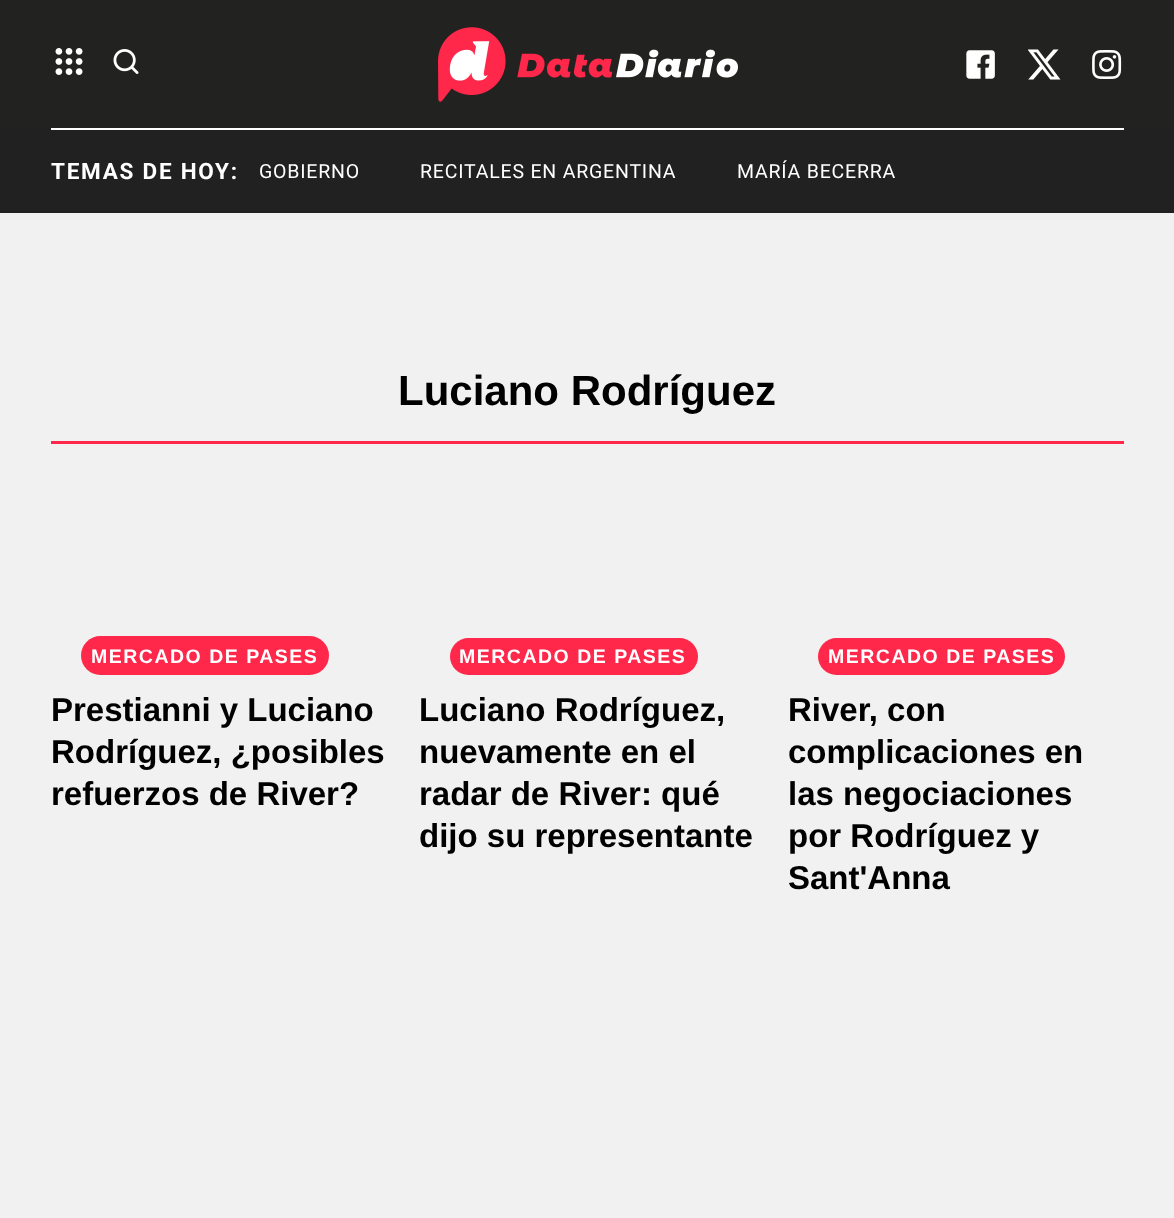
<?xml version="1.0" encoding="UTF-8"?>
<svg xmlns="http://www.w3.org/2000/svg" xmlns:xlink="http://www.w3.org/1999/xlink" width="1174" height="1218">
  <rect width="100%" height="100%" fill="#f1f1f1" />
  <rect width="1174" height="128" fill="#222221" />
  <image x="55" y="48" width="28" height="27" xlink:href="image1.png" />
  <image x="113" y="49" width="26" height="25" xlink:href="image2.png" />
  <image x="438" y="27" width="300" height="75" xlink:href="image3.png" />
  <image x="966" y="50" width="29" height="29" xlink:href="image4.png" />
  <image x="1028" y="49" width="33" height="31" xlink:href="image5.png" />
  <image x="1092" y="50" width="30" height="29" xlink:href="image6.png" />
  <rect y="128" width="1174" height="85" fill="#212121" />
  <rect x="51" y="128" width="1073" height="2" fill="#ffffff" />
  <rect x="51" y="441" width="1073" height="3" fill="#ff274a" />
  <rect x="81" y="636" width="248" height="39" rx="19.5" fill="#ff274a" />
  <rect x="450" y="638" width="248" height="37" rx="18.5" fill="#ff274a" />
  <rect x="818" y="638" width="247" height="37" rx="18.5" fill="#ff274a" />
  <text x="51" y="179" style="font-family: Roboto; font-size: 22.5px; font-weight: bold; letter-spacing: 1.75px; fill: #ffffff">TEMAS DE HOY:</text>
  <text x="259" y="178" style="font-family: Roboto; font-size: 19.5px; letter-spacing: 0.8px; fill: #ffffff">GOBIERNO</text>
  <text x="420" y="178" style="font-family: Roboto; font-size: 19.5px; letter-spacing: 0.8px; fill: #ffffff">RECITALES EN ARGENTINA</text>
  <text x="737" y="178" style="font-family: Roboto; font-size: 19.5px; letter-spacing: 0.8px; fill: #ffffff">MARÍA BECERRA</text>
  <text x="398" y="405" style="font-family: Liberation Sans; font-size: 42px; font-weight: bold; fill: #000000">Luciano Rodríguez</text>
  <text x="91" y="663" style="font-family: Liberation Sans; font-size: 19.5px; font-weight: bold; letter-spacing: 1.5px; fill: #ffffff">MERCADO DE PASES</text>
  <text x="51" y="721" style="font-family: Liberation Sans; font-size: 33px; font-weight: bold; fill: #000000">Prestianni y Luciano</text>
  <text x="51" y="763" style="font-family: Liberation Sans; font-size: 33px; font-weight: bold; fill: #000000">Rodríguez, ¿posibles</text>
  <text x="51" y="805" style="font-family: Liberation Sans; font-size: 33px; font-weight: bold; fill: #000000">refuerzos de River?</text>
  <text x="459" y="663" style="font-family: Liberation Sans; font-size: 19.5px; font-weight: bold; letter-spacing: 1.5px; fill: #ffffff">MERCADO DE PASES</text>
  <text x="419" y="721" style="font-family: Liberation Sans; font-size: 33px; font-weight: bold; fill: #000000">Luciano Rodríguez,</text>
  <text x="419" y="763" style="font-family: Liberation Sans; font-size: 33px; font-weight: bold; fill: #000000">nuevamente en el</text>
  <text x="419" y="805" style="font-family: Liberation Sans; font-size: 33px; font-weight: bold; fill: #000000">radar de River: qué</text>
  <text x="419" y="847" style="font-family: Liberation Sans; font-size: 33px; font-weight: bold; fill: #000000">dijo su representante</text>
  <text x="828" y="663" style="font-family: Liberation Sans; font-size: 19.5px; font-weight: bold; letter-spacing: 1.5px; fill: #ffffff">MERCADO DE PASES</text>
  <text x="788" y="721" style="font-family: Liberation Sans; font-size: 33px; font-weight: bold; fill: #000000">River, con</text>
  <text x="788" y="763" style="font-family: Liberation Sans; font-size: 33px; font-weight: bold; fill: #000000">complicaciones en</text>
  <text x="788" y="805" style="font-family: Liberation Sans; font-size: 33px; font-weight: bold; fill: #000000">las negociaciones</text>
  <text x="788" y="847" style="font-family: Liberation Sans; font-size: 33px; font-weight: bold; fill: #000000">por Rodríguez y</text>
  <text x="788" y="889" style="font-family: Liberation Sans; font-size: 33px; font-weight: bold; fill: #000000">Sant'Anna</text>
</svg>
